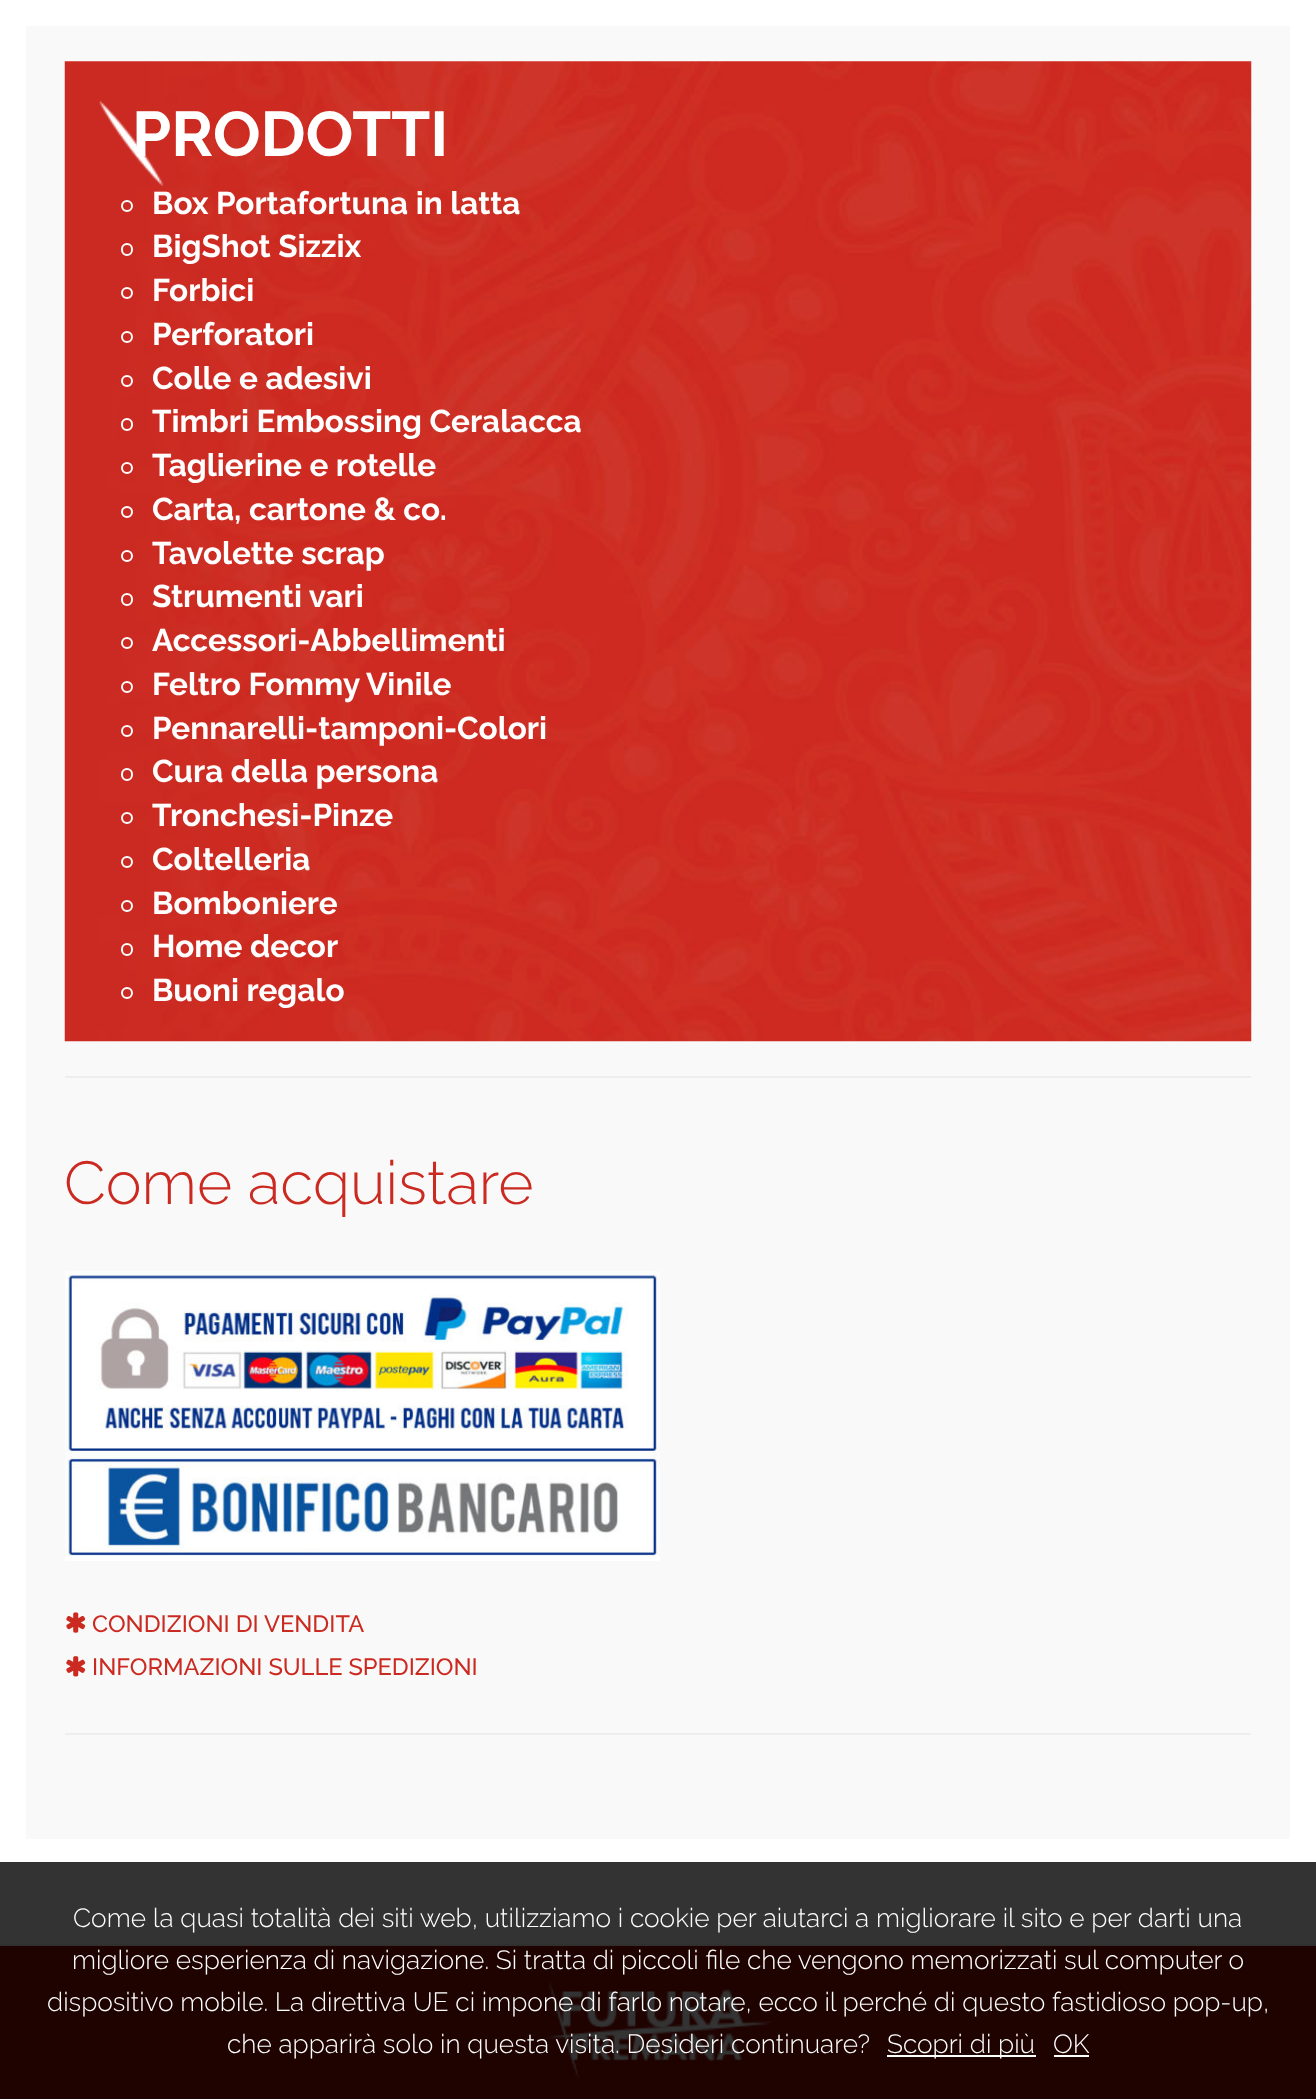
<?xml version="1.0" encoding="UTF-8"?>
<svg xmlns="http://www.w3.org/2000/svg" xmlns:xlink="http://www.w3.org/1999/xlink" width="1316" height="2099">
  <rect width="100%" height="100%" fill="#ffffff" />
  <rect y="1862" width="1316" height="82" fill="#333333" />
  <rect x="26" y="26" width="1264" height="1813" fill="#f9f9f9" />
  <image x="64" y="61" width="1188" height="981" xlink:href="image1.png" />
  <image x="99" y="101" width="64" height="85" xlink:href="image2.png" />
  <circle cx="127" cy="206" r="5" fill="none" stroke="#ffffff" stroke-width="2" />
  <rect x="122" y="244" width="10" height="11" rx="5" fill="none" stroke="#ffffff" stroke-width="2" />
  <circle cx="127" cy="293" r="5" fill="none" stroke="#ffffff" stroke-width="2" />
  <circle cx="127" cy="337" r="5" fill="none" stroke="#ffffff" stroke-width="2" />
  <circle cx="127" cy="381" r="5" fill="none" stroke="#ffffff" stroke-width="2" />
  <rect x="122" y="419" width="10" height="11" rx="5" fill="none" stroke="#ffffff" stroke-width="2" />
  <circle cx="127" cy="468" r="5" fill="none" stroke="#ffffff" stroke-width="2" />
  <circle cx="127" cy="512" r="5" fill="none" stroke="#ffffff" stroke-width="2" />
  <circle cx="127" cy="556" r="5" fill="none" stroke="#ffffff" stroke-width="2" />
  <rect x="122" y="594" width="10" height="11" rx="5" fill="none" stroke="#ffffff" stroke-width="2" />
  <circle cx="127" cy="643" r="5" fill="none" stroke="#ffffff" stroke-width="2" />
  <circle cx="127" cy="687" r="5" fill="none" stroke="#ffffff" stroke-width="2" />
  <circle cx="127" cy="731" r="5" fill="none" stroke="#ffffff" stroke-width="2" />
  <rect x="122" y="769" width="10" height="11" rx="5" fill="none" stroke="#ffffff" stroke-width="2" />
  <circle cx="127" cy="818" r="5" fill="none" stroke="#ffffff" stroke-width="2" />
  <circle cx="127" cy="862" r="5" fill="none" stroke="#ffffff" stroke-width="2" />
  <circle cx="127" cy="906" r="5" fill="none" stroke="#ffffff" stroke-width="2" />
  <rect x="122" y="944" width="10" height="11" rx="5" fill="none" stroke="#ffffff" stroke-width="2" />
  <circle cx="127" cy="993" r="5" fill="none" stroke="#ffffff" stroke-width="2" />
  <rect x="65" y="1076" width="1186" height="2" fill="#eeeeee" />
  <rect x="65" y="1733" width="1186" height="2" fill="#eeeeee" />
  <image x="65" y="1271" width="595" height="290" xlink:href="image3.png" />
  <image x="66" y="1612" width="20" height="21" xlink:href="image4.png" />
  <image x="66" y="1656" width="20" height="21" xlink:href="image5.png" />
  <rect y="1946" width="1316" height="153" fill="#1f0301" />
  <rect y="1944" width="1316" height="2" fill="#303030" />
  <image x="546" y="1981" width="226" height="98" xlink:href="image6.png" />
  <rect x="887" y="2055" width="149" height="2" fill="#ffffff" />
  <rect x="1054" y="2055" width="35" height="2" fill="#ffffff" />
  <text x="132" y="156" style="font-family: Raleway; font-size: 63px; font-weight: bold; fill: #ffffff">PRODOTTI</text>
  <text x="152" y="214" style="font-family: Raleway; font-size: 31.5px; font-weight: bold; fill: #ffffff">Box Portafortuna in latta</text>
  <text x="152" y="257" style="font-family: Raleway; font-size: 31.5px; font-weight: bold; fill: #ffffff">BigShot Sizzix</text>
  <text x="152" y="301" style="font-family: Raleway; font-size: 31.5px; font-weight: bold; fill: #ffffff">Forbici</text>
  <text x="152" y="345" style="font-family: Raleway; font-size: 31.5px; font-weight: bold; fill: #ffffff">Perforatori</text>
  <text x="152" y="389" style="font-family: Raleway; font-size: 31.5px; font-weight: bold; fill: #ffffff">Colle e adesivi</text>
  <text x="152" y="432" style="font-family: Raleway; font-size: 31.5px; font-weight: bold; fill: #ffffff">Timbri Embossing Ceralacca</text>
  <text x="152" y="476" style="font-family: Raleway; font-size: 31.5px; font-weight: bold; fill: #ffffff">Taglierine e rotelle</text>
  <text x="152" y="520" style="font-family: Raleway; font-size: 31.5px; font-weight: bold; fill: #ffffff">Carta, cartone &amp; co.</text>
  <text x="152" y="564" style="font-family: Raleway; font-size: 31.5px; font-weight: bold; fill: #ffffff">Tavolette scrap</text>
  <text x="152" y="607" style="font-family: Raleway; font-size: 31.5px; font-weight: bold; fill: #ffffff">Strumenti vari</text>
  <text x="152" y="651" style="font-family: Raleway; font-size: 31.5px; font-weight: bold; fill: #ffffff">Accessori-Abbellimenti</text>
  <text x="152" y="695" style="font-family: Raleway; font-size: 31.5px; font-weight: bold; fill: #ffffff">Feltro Fommy Vinile</text>
  <text x="152" y="739" style="font-family: Raleway; font-size: 31.5px; font-weight: bold; fill: #ffffff">Pennarelli-tamponi-Colori</text>
  <text x="152" y="782" style="font-family: Raleway; font-size: 31.5px; font-weight: bold; fill: #ffffff">Cura della persona</text>
  <text x="152" y="826" style="font-family: Raleway; font-size: 31.5px; font-weight: bold; fill: #ffffff">Tronchesi-Pinze</text>
  <text x="152" y="870" style="font-family: Raleway; font-size: 31.5px; font-weight: bold; fill: #ffffff">Coltelleria</text>
  <text x="152" y="914" style="font-family: Raleway; font-size: 31.5px; font-weight: bold; fill: #ffffff">Bomboniere</text>
  <text x="152" y="957" style="font-family: Raleway; font-size: 31.5px; font-weight: bold; fill: #ffffff">Home decor</text>
  <text x="152" y="1001" style="font-family: Raleway; font-size: 31.5px; font-weight: bold; fill: #ffffff">Buoni regalo</text>
  <text x="64" y="1204" style="font-family: Raleway; font-size: 60.5px; font-weight: 300; fill: #cb2a21">Come acquistare</text>
  <text x="92" y="1632" style="font-family: Raleway; font-size: 23.6px; font-weight: 500; fill: #cb2a21">CONDIZIONI DI VENDITA</text>
  <text x="92" y="1675" style="font-family: Raleway; font-size: 23.6px; font-weight: 500; fill: #cb2a21">INFORMAZIONI SULLE SPEDIZIONI</text>
  <text x="73" y="1927" style="font-family: Raleway; font-size: 26.25px; font-weight: 300; fill: #ffffff">Come la quasi totalità dei siti web, utilizziamo i cookie per aiutarci a migliorare il sito e per darti una</text>
  <text x="72" y="1969" style="font-family: Raleway; font-size: 26.25px; font-weight: 300; fill: #ffffff">migliore esperienza di navigazione. Si tratta di piccoli file che vengono memorizzati sul computer o</text>
  <text x="47" y="2011" style="font-family: Raleway; font-size: 26.25px; font-weight: 300; fill: #ffffff">dispositivo mobile. La direttiva UE ci impone di farlo notare, ecco il perché di questo fastidioso pop-up,</text>
  <text x="227" y="2053" style="font-family: Raleway; font-size: 26.25px; font-weight: 300; fill: #ffffff">che apparirà solo in questa visita. Desideri continuare?</text>
  <text x="887" y="2053" style="font-family: Raleway; font-size: 26.25px; font-weight: 300; fill: #ffffff">Scopri di più</text>
  <text x="1053" y="2053" style="font-family: Raleway; font-size: 26.25px; font-weight: 300; fill: #ffffff">OK</text>
</svg>
